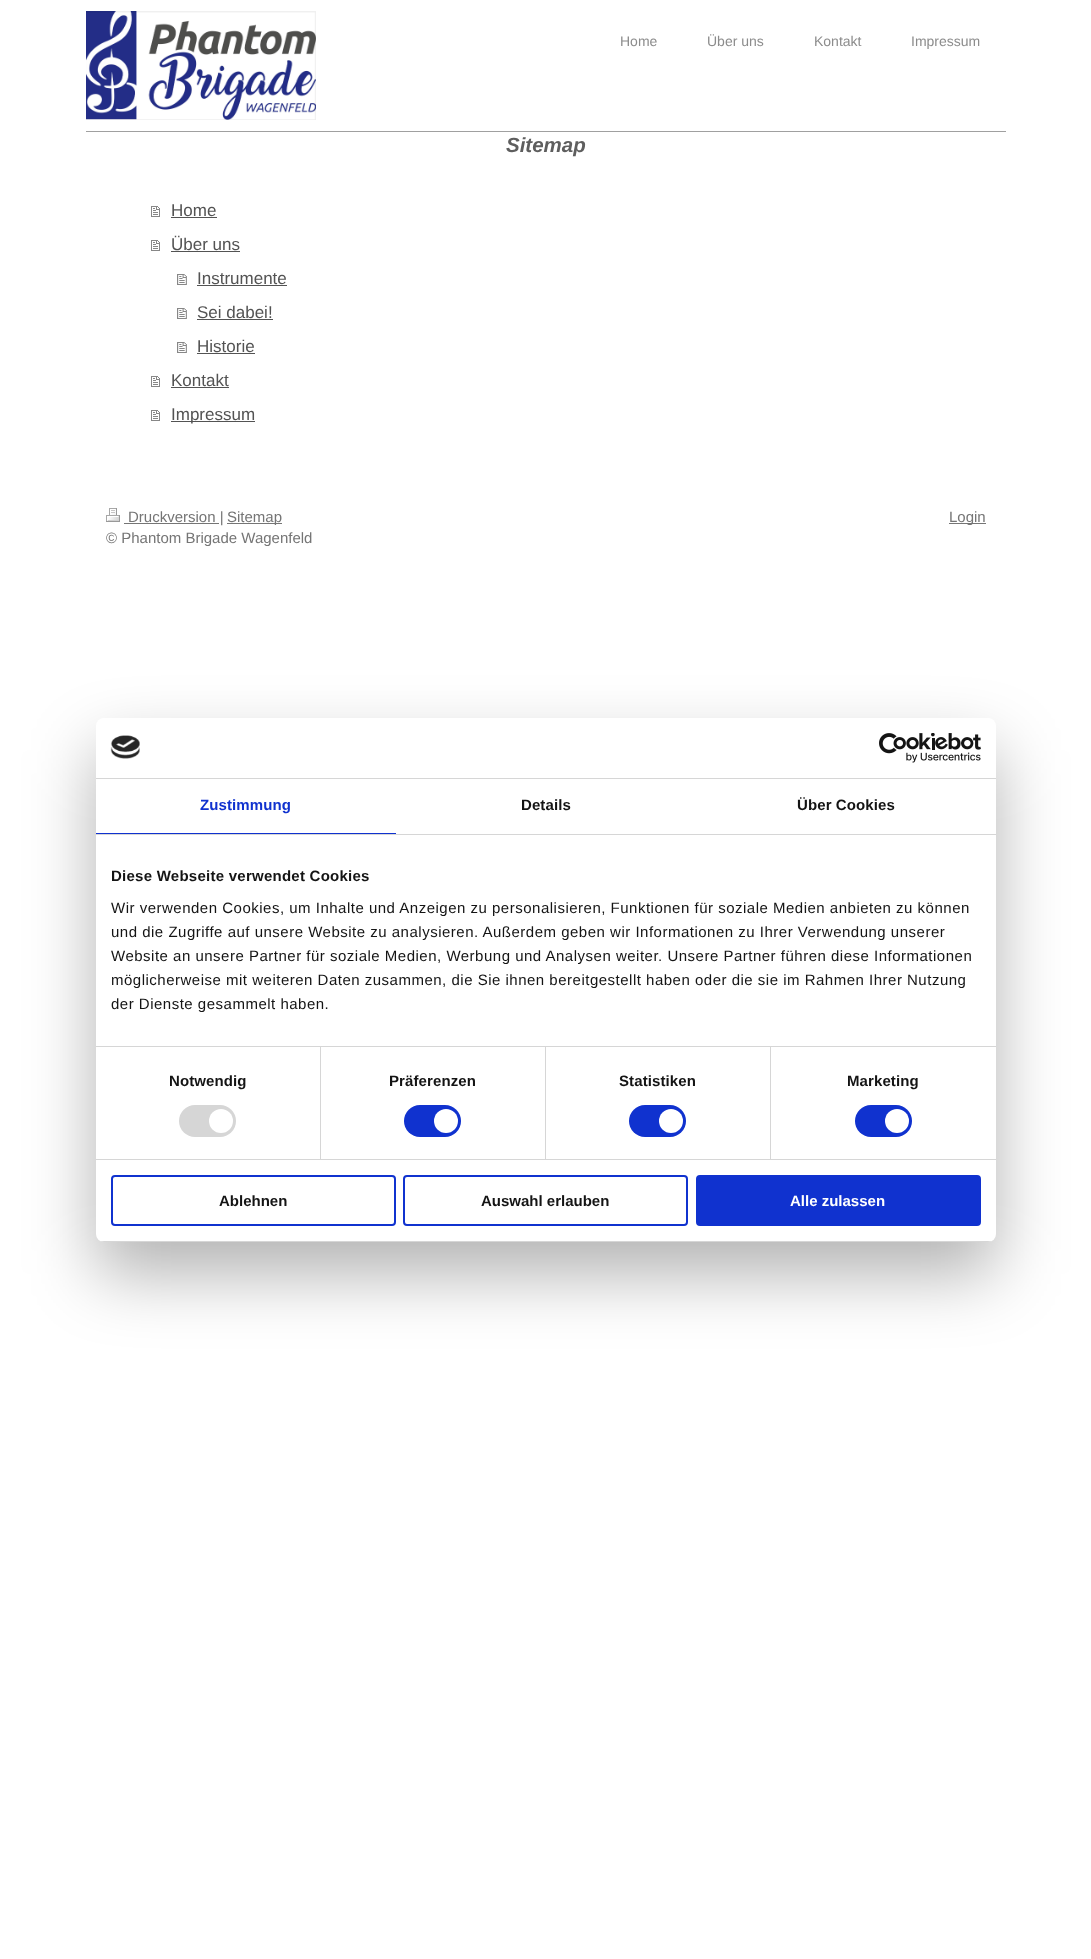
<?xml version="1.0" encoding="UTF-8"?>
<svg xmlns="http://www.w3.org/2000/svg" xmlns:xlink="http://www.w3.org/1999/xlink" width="1091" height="1959">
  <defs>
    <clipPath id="clip1"><rect x="96" y="718" width="900" height="524" rx="8" /></clipPath>
    <clipPath id="clip2"><rect x="106" y="506" width="880" height="42" /></clipPath>
  </defs>
  <rect width="100%" height="100%" fill="#ffffff" />
  <image x="86" y="11" width="230" height="109" xlink:href="image1.png" />
  <rect x="86" y="131" width="920" height="1" fill="#a0a0a0" />
  <image x="151" y="206" width="9" height="11" xlink:href="image2.png" />
  <rect x="171" y="217" width="46" height="1" fill="#535353" />
  <image x="151" y="240" width="9" height="11" xlink:href="image2.png" />
  <rect x="171" y="251" width="69" height="1" fill="#535353" />
  <image x="177" y="274" width="10" height="11" xlink:href="image3.png" />
  <rect x="197" y="285" width="90" height="1" fill="#535353" />
  <image x="177" y="308" width="10" height="11" xlink:href="image3.png" />
  <rect x="197" y="319" width="76" height="1" fill="#535353" />
  <image x="177" y="342" width="10" height="11" xlink:href="image3.png" />
  <rect x="197" y="353" width="58" height="1" fill="#535353" />
  <image x="151" y="376" width="9" height="11" xlink:href="image2.png" />
  <rect x="171" y="387" width="58" height="1" fill="#535353" />
  <image x="151" y="410" width="9" height="11" xlink:href="image2.png" />
  <rect x="171" y="421" width="84" height="1" fill="#535353" />
  <image x="106" y="508" width="14" height="14" xlink:href="image4.png" />
  <rect x="124" y="523" width="95" height="1" fill="#757575" />
  <rect x="227" y="523" width="55" height="1" fill="#757575" />
  <rect x="949" y="523" width="37" height="1" fill="#757575" />
  <rect x="96" y="750" width="900" height="524" rx="8" fill="#000000" fill-opacity="0.3" filter="blur(34px)" />
  <rect x="96" y="718" width="900" height="524" rx="8" fill="#ffffff" />
  <rect x="96" y="778" width="900" height="1" fill="#d6d6d6" />
  <image x="110" y="735" width="30" height="24" xlink:href="image5.png" />
  <image x="879" y="733" width="102" height="30" xlink:href="image6.png" />
  <rect x="96" y="834" width="900" height="1" fill="#d6d6d6" />
  <rect x="96" y="833" width="300" height="1" fill="#1032cf" />
  <rect x="96" y="1046" width="900" height="1" fill="#d6d6d6" />
  <rect x="96" y="1159" width="900" height="1" fill="#d6d6d6" />
  <rect x="320" y="1047" width="1" height="112" fill="#d6d6d6" />
  <rect x="179" y="1105" width="57" height="32" rx="16" fill="#d6d6d6" />
  <circle cx="221" cy="1121" r="12" fill="#ffffff" />
  <rect x="545" y="1047" width="1" height="112" fill="#d6d6d6" />
  <rect x="404" y="1105" width="57" height="32" rx="16" fill="#1032cf" />
  <circle cx="446" cy="1121" r="12" fill="#ffffff" />
  <rect x="770" y="1047" width="1" height="112" fill="#d6d6d6" />
  <rect x="629" y="1105" width="57" height="32" rx="16" fill="#1032cf" />
  <circle cx="671" cy="1121" r="12" fill="#ffffff" />
  <rect x="855" y="1105" width="57" height="32" rx="16" fill="#1032cf" />
  <circle cx="897" cy="1121" r="12" fill="#ffffff" />
  <g clip-path="url(#clip1)">
    <rect x="96" y="1241" width="900" height="1" fill="#d6d6d6" />
  </g>
  <rect x="112" y="1176" width="283" height="49" rx="3" fill="none" stroke="#1032cf" stroke-width="2" />
  <rect x="404" y="1176" width="283" height="49" rx="3" fill="none" stroke="#1032cf" stroke-width="2" />
  <rect x="697" y="1176" width="283" height="49" rx="3" fill="#1032cf" stroke="#1032cf" stroke-width="2" />
  <text x="620" y="46" style="font-family: Liberation Sans; font-size: 14px; fill: #8c8c8c">Home</text>
  <text x="707" y="46" style="font-family: Liberation Sans; font-size: 14px; fill: #8c8c8c">Über uns</text>
  <text x="814" y="46" style="font-family: Liberation Sans; font-size: 14px; fill: #8c8c8c">Kontakt</text>
  <text x="911" y="46" style="font-family: Liberation Sans; font-size: 14px; fill: #8c8c8c">Impressum</text>
  <text x="506" y="152" style="font-family: Liberation Sans; font-size: 20.5px; font-weight: bold; font-style: italic; fill: #5e5e5e">Sitemap</text>
  <text x="171" y="216" style="font-family: Liberation Sans; font-size: 17px; fill: #535353">Home</text>
  <text x="171" y="250" style="font-family: Liberation Sans; font-size: 17px; fill: #535353">Über uns</text>
  <text x="197" y="284" style="font-family: Liberation Sans; font-size: 17px; fill: #535353">Instrumente</text>
  <text x="197" y="318" style="font-family: Liberation Sans; font-size: 17px; fill: #535353">Sei dabei!</text>
  <text x="197" y="352" style="font-family: Liberation Sans; font-size: 17px; fill: #535353">Historie</text>
  <text x="171" y="386" style="font-family: Liberation Sans; font-size: 17px; fill: #535353">Kontakt</text>
  <text x="171" y="420" style="font-family: Liberation Sans; font-size: 17px; fill: #535353">Impressum</text>
  <text x="128" y="522" style="font-family: Liberation Sans; font-size: 15px; fill: #757575">Druckversion |</text>
  <text x="227" y="522" style="font-family: Liberation Sans; font-size: 15px; fill: #757575">Sitemap</text>
  <g clip-path="url(#clip2)">
    <text x="106" y="543" style="font-family: Liberation Sans; font-size: 15px; fill: #757575">© Phantom Brigade Wagenfeld</text>
  </g>
  <text x="949" y="522" style="font-family: Liberation Sans; font-size: 15px; fill: #757575">Login</text>
  <text x="200" y="810" style="font-family: Liberation Sans; font-size: 15px; font-weight: bold; letter-spacing: 0.1px; fill: #1032cf">Zustimmung</text>
  <text x="521" y="810" style="font-family: Liberation Sans; font-size: 15px; font-weight: bold; letter-spacing: 0.1px; fill: #141414">Details</text>
  <text x="797" y="810" style="font-family: Liberation Sans; font-size: 15px; font-weight: bold; letter-spacing: 0.1px; fill: #141414">Über Cookies</text>
  <text x="111" y="881" style="font-family: Liberation Sans; font-size: 15px; font-weight: bold; letter-spacing: 0.25px; fill: #141414">Diese Webseite verwendet Cookies</text>
  <text x="111" y="913" style="font-family: Liberation Sans; font-size: 15px; letter-spacing: 0.5px; fill: #141414">Wir verwenden Cookies, um Inhalte und Anzeigen zu personalisieren, Funktionen für soziale Medien anbieten zu können</text>
  <text x="111" y="937" style="font-family: Liberation Sans; font-size: 15px; letter-spacing: 0.5px; fill: #141414">und die Zugriffe auf unsere Website zu analysieren. Außerdem geben wir Informationen zu Ihrer Verwendung unserer</text>
  <text x="111" y="961" style="font-family: Liberation Sans; font-size: 15px; letter-spacing: 0.5px; fill: #141414">Website an unsere Partner für soziale Medien, Werbung und Analysen weiter. Unsere Partner führen diese Informationen</text>
  <text x="111" y="985" style="font-family: Liberation Sans; font-size: 15px; letter-spacing: 0.5px; fill: #141414">möglicherweise mit weiteren Daten zusammen, die Sie ihnen bereitgestellt haben oder die sie im Rahmen Ihrer Nutzung</text>
  <text x="111" y="1009" style="font-family: Liberation Sans; font-size: 15px; letter-spacing: 0.5px; fill: #141414">der Dienste gesammelt haben.</text>
  <text x="169" y="1086" style="font-family: Liberation Sans; font-size: 15px; font-weight: bold; letter-spacing: 0.1px; fill: #141414">Notwendig</text>
  <text x="389" y="1086" style="font-family: Liberation Sans; font-size: 15px; font-weight: bold; letter-spacing: 0.1px; fill: #141414">Präferenzen</text>
  <text x="619" y="1086" style="font-family: Liberation Sans; font-size: 15px; font-weight: bold; letter-spacing: 0.1px; fill: #141414">Statistiken</text>
  <text x="847" y="1086" style="font-family: Liberation Sans; font-size: 15px; font-weight: bold; letter-spacing: 0.1px; fill: #141414">Marketing</text>
  <text x="219" y="1206" style="font-family: Liberation Sans; font-size: 15px; font-weight: bold; fill: #141414">Ablehnen</text>
  <text x="481" y="1206" style="font-family: Liberation Sans; font-size: 15px; font-weight: bold; fill: #141414">Auswahl erlauben</text>
  <text x="790" y="1206" style="font-family: Liberation Sans; font-size: 15px; font-weight: bold; fill: #ffffff">Alle zulassen</text>
</svg>
